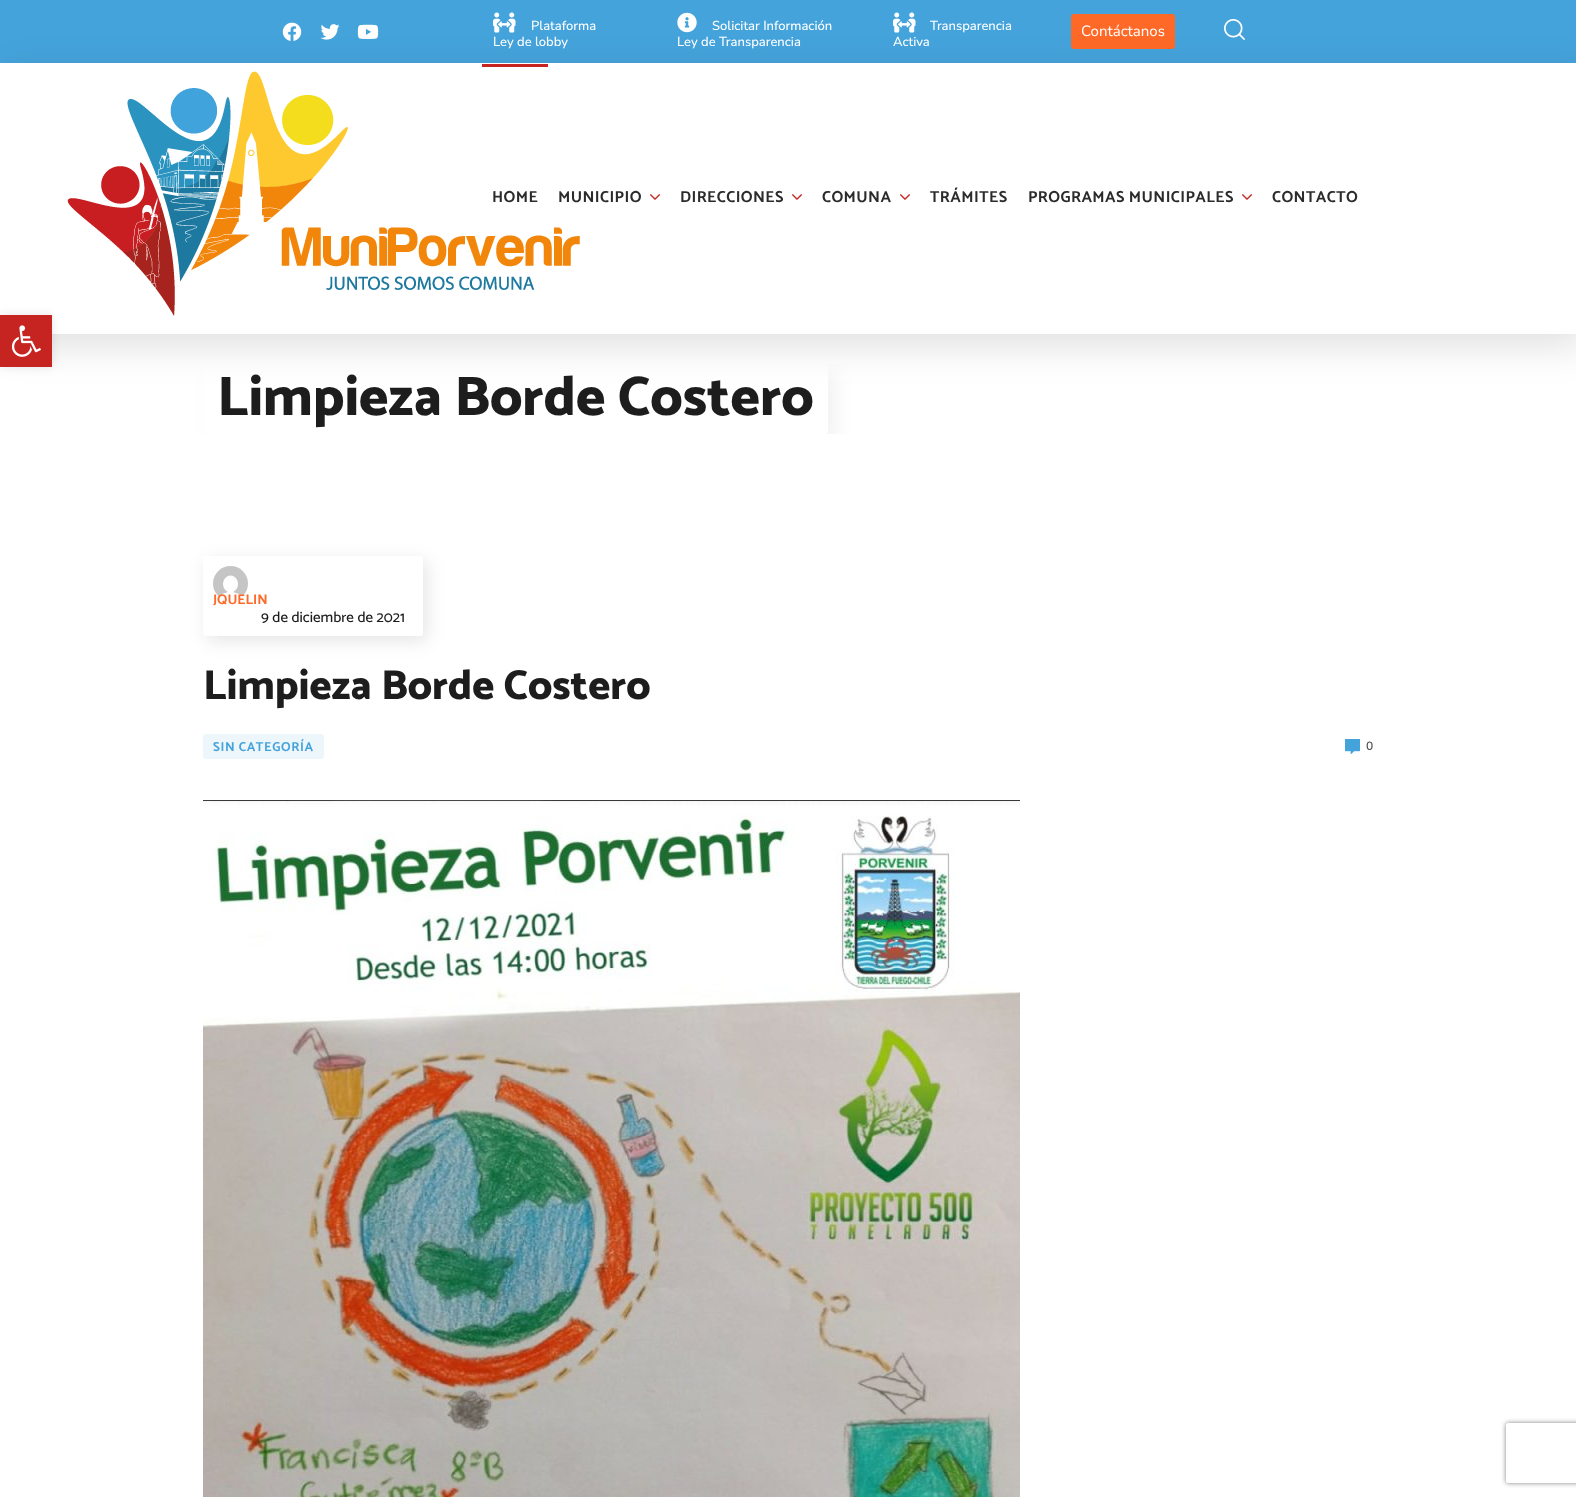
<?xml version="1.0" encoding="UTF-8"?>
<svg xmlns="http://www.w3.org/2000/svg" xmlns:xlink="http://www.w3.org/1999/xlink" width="1576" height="1497">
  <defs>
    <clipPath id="clip1"><rect x="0" y="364" width="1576" height="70" /></clipPath>
    <clipPath id="clip2"><path d="M 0 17 h 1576 v 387 h -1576 z m 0 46 h 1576 v 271 h -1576 z" clip-rule="evenodd" /></clipPath>
    <clipPath id="clip3"><path d="M 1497 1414 h 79 v 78 h -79 z m 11 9 h 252 c 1 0 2 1 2 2 v 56 c 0 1 -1 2 -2 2 h -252 c -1 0 -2 -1 -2 -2 v -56 c 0 -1 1 -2 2 -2 z" clip-rule="evenodd" /></clipPath>
  </defs>
  <rect width="100%" height="100%" fill="#ffffff" />
  <rect width="1576" height="63" fill="#45a3db" />
  <image x="282" y="22" width="20" height="19" xlink:href="image1.png" />
  <image x="320" y="24" width="20" height="16" xlink:href="image2.png" />
  <image x="357" y="24" width="22" height="15" xlink:href="image3.png" />
  <rect x="1071" y="14" width="104" height="35" rx="3" fill="#ff6927" />
  <image x="1224" y="19" width="21" height="21" xlink:href="image6.png" />
  <g clip-path="url(#clip1)">
    <rect x="211" y="373" width="625" height="70" rx="3" fill="#000000" fill-opacity="0.05" filter="blur(9px)" />
  </g>
  <rect x="203" y="364" width="625" height="70" rx="3" fill="#ffffff" />
  <g clip-path="url(#clip2)">
    <rect x="9" y="75" width="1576" height="271" fill="#000000" fill-opacity="0.12" filter="blur(19px)" />
  </g>
  <image x="493" y="12" width="23" height="21" xlink:href="image4.png" />
  <image x="677" y="12" width="20" height="21" xlink:href="image5.png" />
  <image x="893" y="12" width="23" height="21" xlink:href="image4.png" />
  <image x="67" y="71" width="513" height="245" xlink:href="image7.png" />
  <rect x="482" y="64" width="66" height="3" fill="#c62420" />
  <image x="650" y="194" width="10" height="6" xlink:href="image8.png" />
  <image x="792" y="194" width="10" height="6" xlink:href="image8.png" />
  <image x="900" y="194" width="10" height="6" xlink:href="image8.png" />
  <image x="1242" y="194" width="10" height="6" xlink:href="image8.png" />
  <rect y="315" width="52" height="52" fill="#000000" fill-opacity="0.1" filter="blur(5px)" />
  <rect y="315" width="52" height="52" fill="#c62420" />
  <image x="11" y="325" width="30" height="32" xlink:href="image9.png" />
  <rect x="207" y="561" width="220" height="80" rx="3" fill="#000000" fill-opacity="0.1" filter="blur(9px)" />
  <rect x="203" y="556" width="220" height="80" rx="3" fill="#ffffff" />
  <image x="213" y="566" width="35" height="31" xlink:href="image10.png" />
  <rect x="203" y="734" width="121" height="25" rx="3" fill="#ecf6fb" />
  <image x="1345" y="739" width="15" height="15" xlink:href="image11.png" />
  <image x="203" y="800" width="817" height="697" xlink:href="image12.png" />
  <g clip-path="url(#clip3)">
    <rect x="1506" y="1423" width="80" height="60" rx="2" fill="#808080" filter="blur(2.5px)" />
  </g>
  <text x="531" y="30" style="font-family: Nunito Sans; font-size: 13px; font-weight: 500; fill: #ffffff">Plataforma</text>
  <text x="493" y="46" style="font-family: Nunito Sans; font-size: 13px; font-weight: 500; fill: #ffffff">Ley de lobby</text>
  <text x="712" y="30" style="font-family: Nunito Sans; font-size: 13px; font-weight: 500; fill: #ffffff">Solicitar Información</text>
  <text x="677" y="46" style="font-family: Nunito Sans; font-size: 13px; font-weight: 500; fill: #ffffff">Ley de Transparencia</text>
  <text x="930" y="30" style="font-family: Nunito Sans; font-size: 13px; font-weight: 500; fill: #ffffff">Transparencia</text>
  <text x="893" y="46" style="font-family: Nunito Sans; font-size: 13px; font-weight: 500; fill: #ffffff">Activa</text>
  <text x="1081" y="36" style="font-family: Nunito Sans; font-size: 15px; fill: #ffffff">Contáctanos</text>
  <text x="492" y="202" style="font-family: Catamaran; font-size: 16px; font-weight: bold; letter-spacing: 0.4px; fill: #2b2b2b">HOME</text>
  <text x="558" y="202" style="font-family: Catamaran; font-size: 16px; font-weight: bold; letter-spacing: 0.4px; fill: #2b2b2b">MUNICIPIO</text>
  <text x="680" y="202" style="font-family: Catamaran; font-size: 16px; font-weight: bold; letter-spacing: 0.4px; fill: #2b2b2b">DIRECCIONES</text>
  <text x="822" y="202" style="font-family: Catamaran; font-size: 16px; font-weight: bold; letter-spacing: 0.4px; fill: #2b2b2b">COMUNA</text>
  <text x="930" y="202" style="font-family: Catamaran; font-size: 16px; font-weight: bold; letter-spacing: 0.4px; fill: #2b2b2b">TRÁMITES</text>
  <text x="1028" y="202" style="font-family: Catamaran; font-size: 16px; font-weight: bold; letter-spacing: 0.4px; fill: #2b2b2b">PROGRAMAS MUNICIPALES</text>
  <text x="1272" y="202" style="font-family: Catamaran; font-size: 16px; font-weight: bold; letter-spacing: 0.4px; fill: #2b2b2b">CONTACTO</text>
  <text x="217" y="415" style="font-family: Catamaran; font-size: 56px; font-weight: 800; fill: #1d1d1d">Limpieza Borde Costero</text>
  <text x="213" y="604" style="font-family: Catamaran; font-size: 14px; font-weight: bold; fill: #ff6927">JQUELIN</text>
  <text x="261" y="622" style="font-family: Catamaran; font-size: 15px; font-weight: 500; fill: #1d1d1d">9 de diciembre de 2021</text>
  <text x="203" y="699" style="font-family: Catamaran; font-size: 42px; font-weight: 800; fill: #1d1d1d">Limpieza Borde Costero</text>
  <text x="213" y="751" style="font-family: Catamaran; font-size: 13px; font-weight: bold; letter-spacing: 0.6px; fill: #45a3db">SIN CATEGORÍA</text>
  <text x="1366" y="750" style="font-family: Nunito Sans; font-size: 12px; font-weight: 600; fill: #505050">0</text>
</svg>
